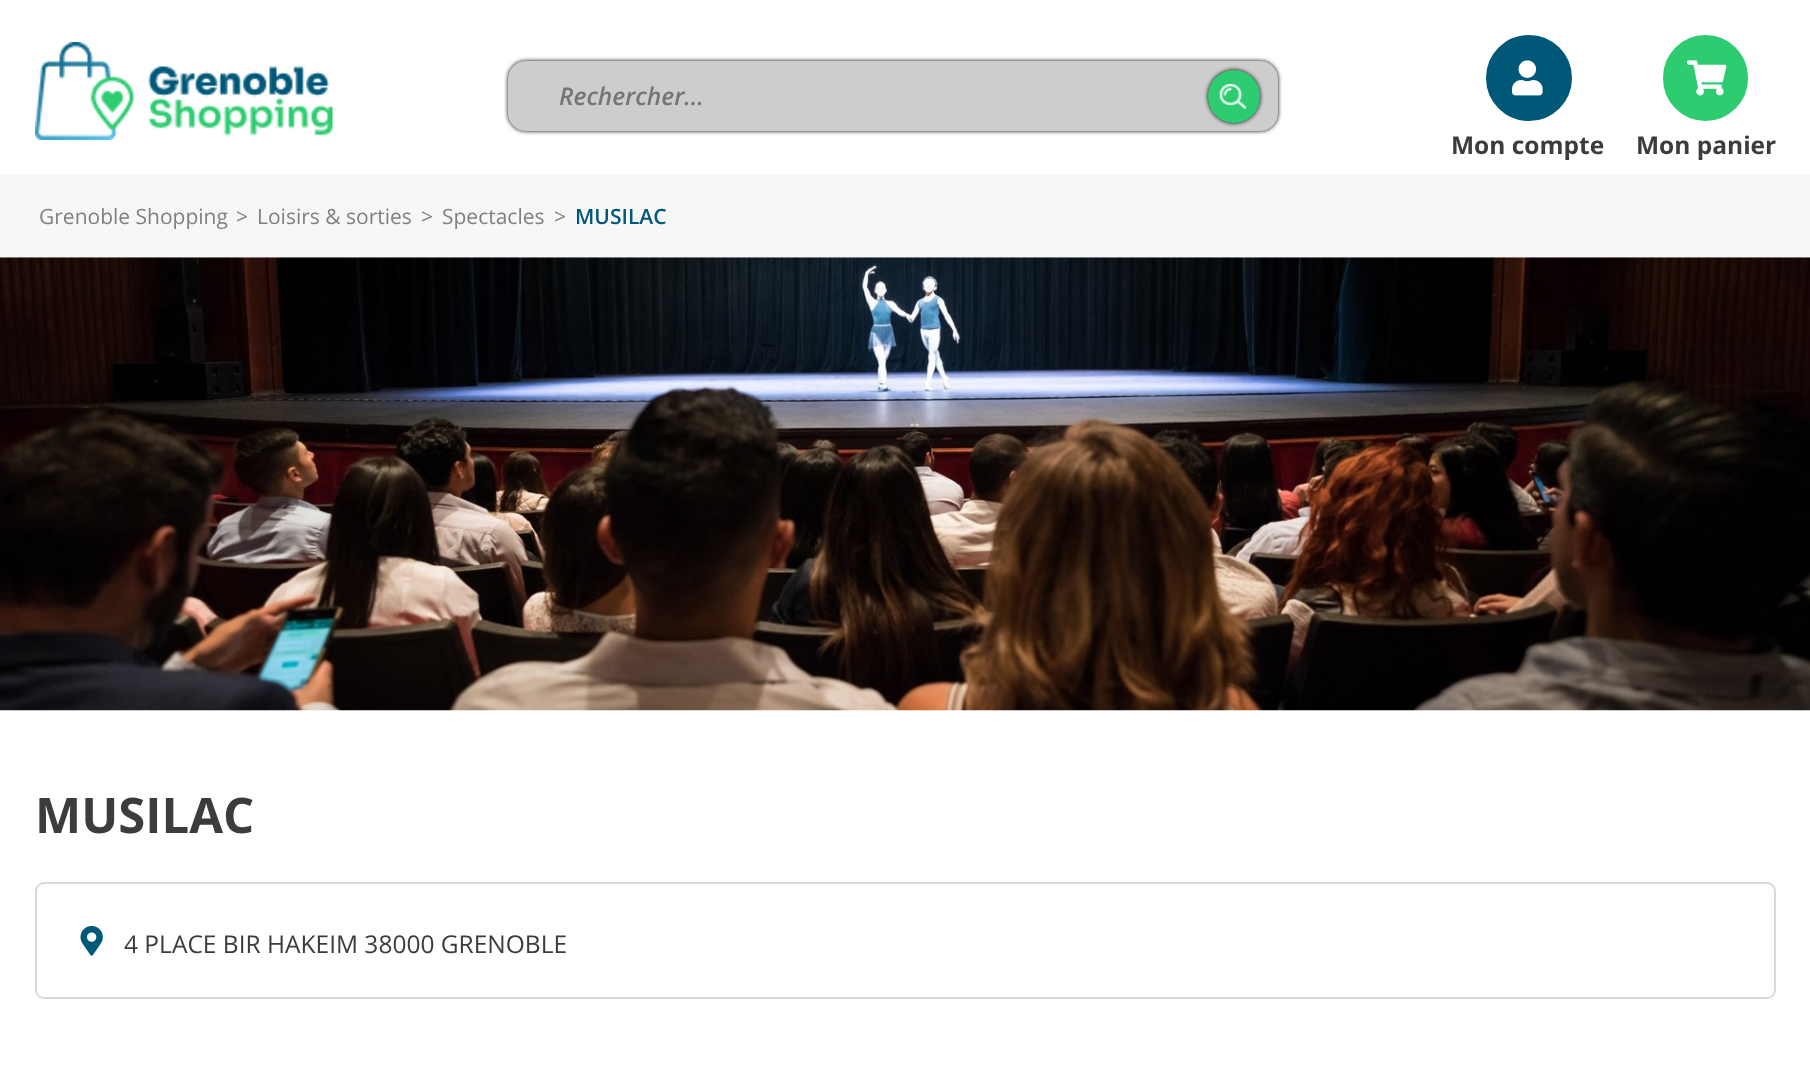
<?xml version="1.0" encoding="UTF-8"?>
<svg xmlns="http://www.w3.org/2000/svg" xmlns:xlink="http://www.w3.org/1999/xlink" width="1810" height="1078">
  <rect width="100%" height="100%" fill="#ffffff" />
  <image x="35" y="42" width="298" height="98" xlink:href="image1.png" />
  <rect x="508" y="61" width="770" height="70" rx="18" fill="#000000" filter="blur(2px)" />
  <rect x="508" y="61" width="770" height="70" rx="18" fill="#cdcdcd" />
  <rect x="1208" y="70" width="52" height="53" rx="26" fill="#000000" filter="blur(2px)" />
  <rect x="1208" y="70" width="52" height="53" rx="26" fill="#2ecc71" />
  <image x="1219" y="84" width="27" height="25" xlink:href="image2.png" />
  <circle cx="1529" cy="78" r="41" fill="#005879" stroke="#005879" stroke-width="4" />
  <image x="1512" y="60" width="31" height="36" xlink:href="image3.png" />
  <rect x="1665" y="37" width="81" height="82" rx="40.5" fill="#2ecc71" stroke="#2ecc71" stroke-width="4" />
  <image x="1687" y="60" width="40" height="36" xlink:href="image4.png" />
  <rect y="175" width="1810" height="82" fill="#f7f7f7" />
  <image x="0" y="257" width="1810" height="454" xlink:href="image5.png" />
  <rect x="36" y="883" width="1739" height="115" rx="8" fill="none" stroke="#dadada" stroke-width="2" />
  <image x="80" y="926" width="23" height="30" xlink:href="image6.png" />
  <text x="559" y="105" style="font-family: Open Sans; font-size: 24.5px; font-weight: 600; font-style: italic; fill: #757575">Rechercher...</text>
  <text x="1451" y="154" style="font-family: Open Sans; font-size: 24.5px; font-weight: bold; fill: #3c3c3b">Mon compte</text>
  <text x="1636" y="154" style="font-family: Open Sans; font-size: 24.5px; font-weight: bold; fill: #3c3c3b">Mon panier</text>
  <text x="39" y="224" style="font-family: Open Sans; font-size: 21px; fill: #808080">Grenoble Shopping</text>
  <text x="236" y="224" style="font-family: Open Sans; font-size: 21px; fill: #808080">&gt;</text>
  <text x="257" y="224" style="font-family: Open Sans; font-size: 21px; fill: #808080">Loisirs &amp; sorties</text>
  <text x="421" y="224" style="font-family: Open Sans; font-size: 21px; fill: #808080">&gt;</text>
  <text x="442" y="224" style="font-family: Open Sans; font-size: 21px; fill: #808080">Spectacles</text>
  <text x="554" y="224" style="font-family: Open Sans; font-size: 21px; fill: #808080">&gt;</text>
  <text x="575" y="224" style="font-family: Open Sans; font-size: 21px; font-weight: 600; fill: #005879">MUSILAC</text>
  <text x="35" y="833" style="font-family: Open Sans; font-size: 49px; font-weight: bold; fill: #3c3c3b">MUSILAC</text>
  <text x="124" y="953" style="font-family: Open Sans; font-size: 24.5px; fill: #3c3c3b">4 PLACE BIR HAKEIM 38000 GRENOBLE</text>
</svg>
